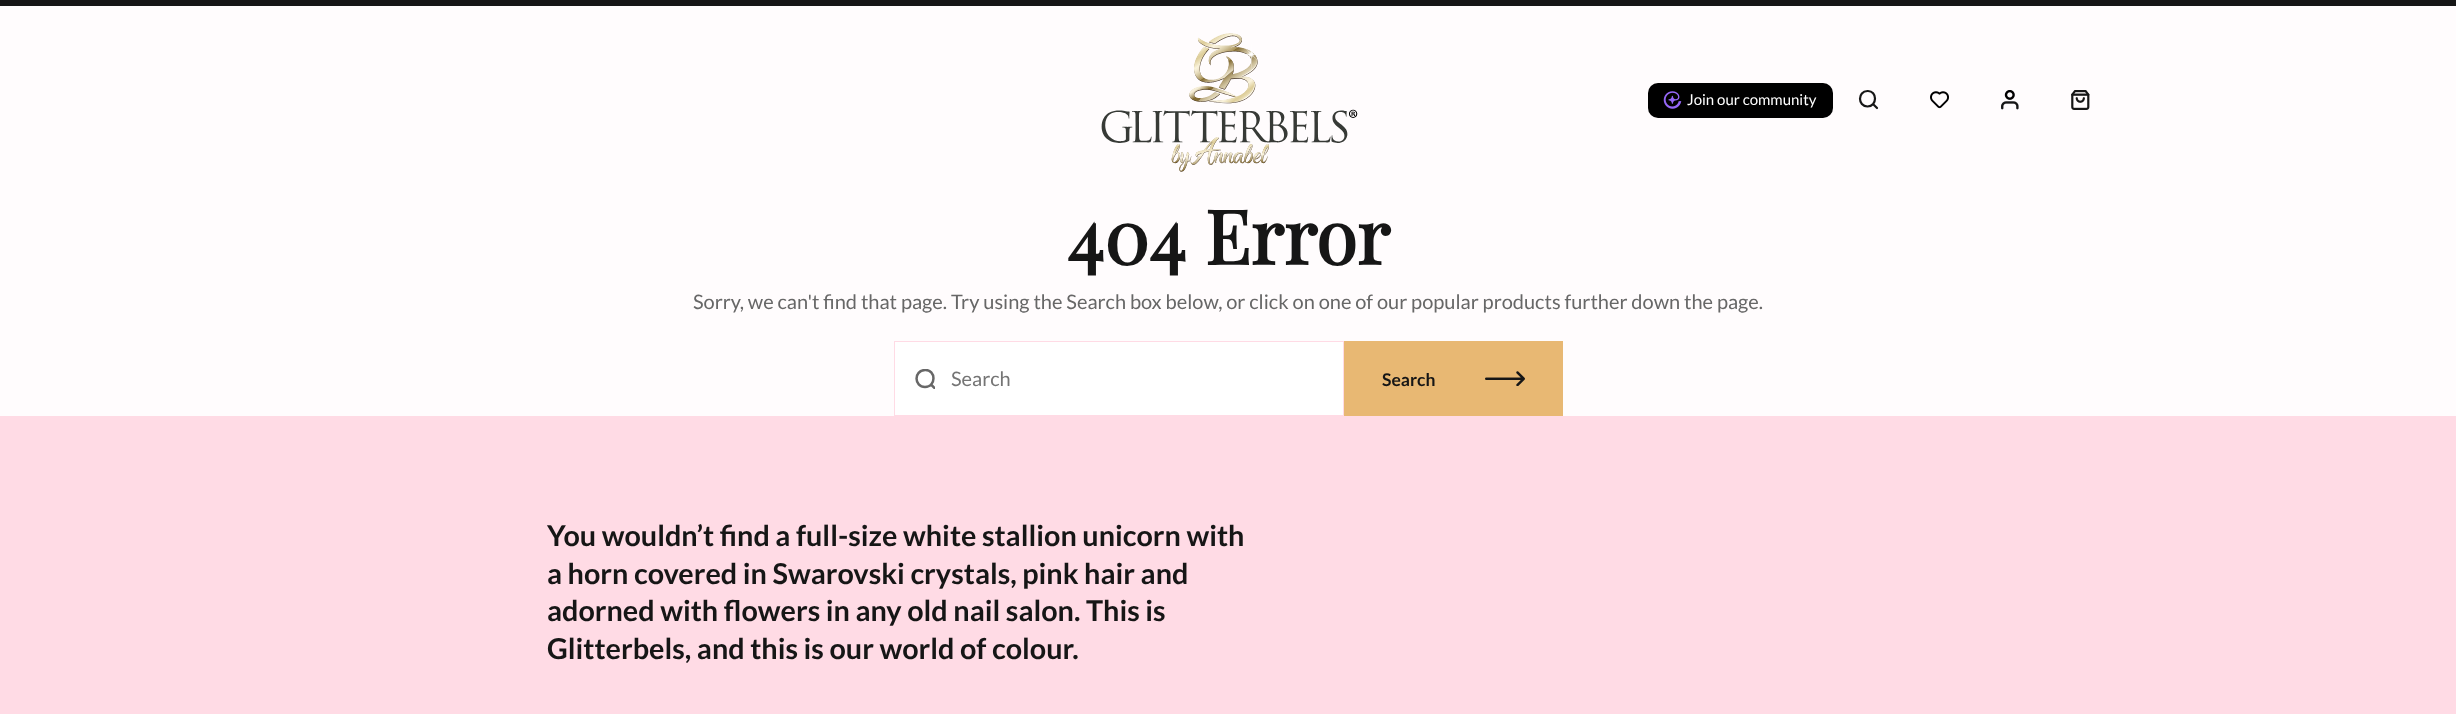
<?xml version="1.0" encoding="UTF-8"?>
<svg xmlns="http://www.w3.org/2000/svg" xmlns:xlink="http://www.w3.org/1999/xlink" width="2456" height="714">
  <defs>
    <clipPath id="clip1"><rect x="915" y="369" width="20" height="20" /></clipPath>
  </defs>
  <rect width="100%" height="100%" fill="#fffcfd" />
  <rect width="2456" height="6" fill="#161616" />
  <image x="1101" y="33" width="257" height="139" xlink:href="image1.png" />
  <rect x="1648" y="83" width="185" height="35" rx="10" fill="#000000" />
  <image x="1663" y="91" width="19" height="18" xlink:href="image2.png" />
  <path d="M 1867.5 106.5 c 10 0 10 -16 0 -15.5 c -10 0.5 -10 15 0 15.5 z m 9.5 1.5 l -4 -4" fill="none" stroke="#161616" stroke-width="2.2" stroke-linecap="round" stroke-linejoin="round" />
  <image x="1930" y="91" width="19" height="18" xlink:href="image3.png" />
  <image x="2001" y="90" width="18" height="20" xlink:href="image4.png" />
  <image x="2071" y="90" width="19" height="20" xlink:href="image5.png" />
  <rect x="895" y="342" width="448" height="73" fill="#ffffff" />
  <g clip-path="url(#clip1)">
    <path d="M 925 387 c 11.5 0 11 -17.5 0 -17 c -11.5 0.5 -11 17 0 17 z m 10.5 2 l -4.5 -4.5" fill="none" stroke="#676767" stroke-width="2.5" stroke-linecap="round" stroke-linejoin="round" />
  </g>
  <rect x="894.5" y="341.5" width="449" height="74" fill="none" stroke="#ffdbe5" />
  <rect x="1344" y="341" width="219" height="75" fill="#e8b873" />
  <image x="1485" y="371" width="40" height="15" xlink:href="image6.png" />
  <rect y="416" width="2456" height="298" fill="#ffdbe5" />
  <text x="1687" y="105" style="font-family: Lato; font-size: 15px; fill: #ffffff">Join our community</text>
  <text x="1067" y="265" style="font-family: Playfair Display; font-size: 75px; font-weight: bold; fill: #161616">404 Error</text>
  <text x="693" y="309" style="font-family: Lato; font-size: 20px; fill: #676767">Sorry, we can't find that page. Try using the Search box below, or click on one of our popular products further down the page.</text>
  <text x="951" y="386" style="font-family: Lato; font-size: 20px; fill: #757575">Search</text>
  <text x="1382" y="386" style="font-family: Lato; font-size: 17.5px; font-weight: bold; fill: #161616">Search</text>
  <text x="547" y="546" style="font-family: Lato; font-size: 28.75px; font-weight: bold; fill: #161616">You wouldn’t find a full-size white stallion unicorn with</text>
  <text x="547" y="584" style="font-family: Lato; font-size: 28.75px; font-weight: bold; fill: #161616">a horn covered in Swarovski crystals, pink hair and</text>
  <text x="547" y="621" style="font-family: Lato; font-size: 28.75px; font-weight: bold; fill: #161616">adorned with flowers in any old nail salon. This is</text>
  <text x="547" y="659" style="font-family: Lato; font-size: 28.75px; font-weight: bold; fill: #161616">Glitterbels, and this is our world of colour.</text>
</svg>
